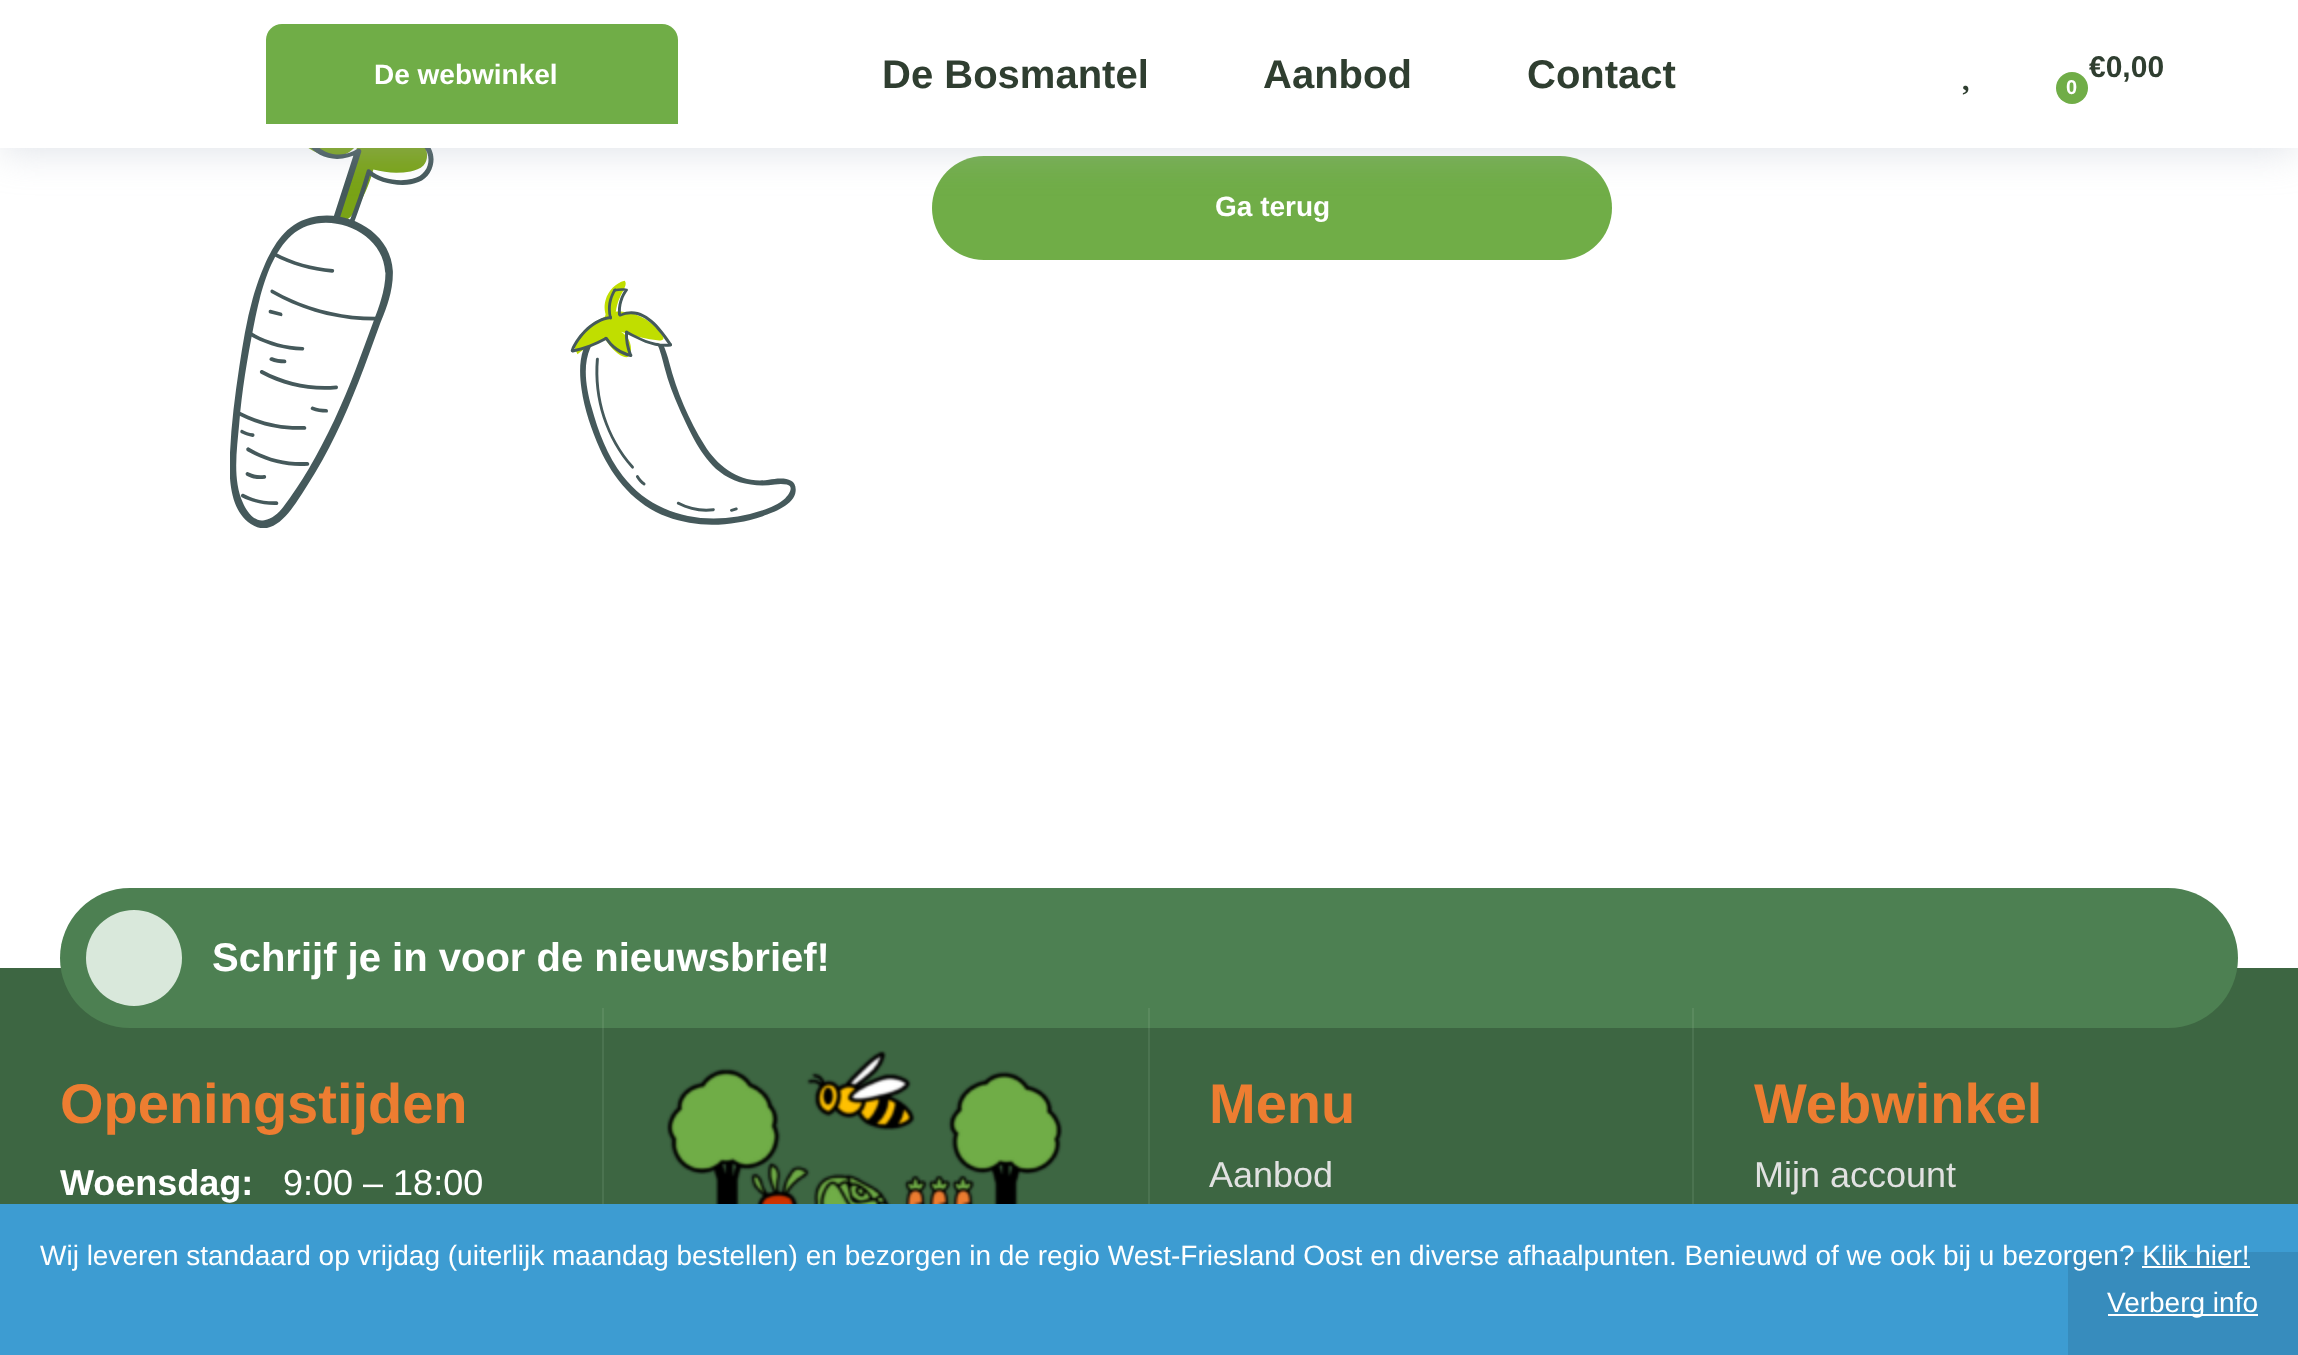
<?xml version="1.0" encoding="UTF-8"?>
<svg xmlns="http://www.w3.org/2000/svg" xmlns:xlink="http://www.w3.org/1999/xlink" width="2298" height="1355">
  <rect width="100%" height="100%" fill="#ffffff" />
  <image x="230" y="148" width="566" height="380" xlink:href="image2.png" />
  <rect x="932" y="156" width="680" height="104" rx="52" fill="#70ad47" />
  <rect y="2" width="2298" height="148" fill="#abb3c2" fill-opacity="0.4" filter="blur(20px)" />
  <rect width="2298" height="148" fill="#ffffff" />
  <path d="M 282 24 h 380 c 9 0 16 7 16 16 v 84 h -412 v -84 c 0 -9 7 -16 16 -16 z" fill="#70ad47" />
  <image x="1962" y="85" width="7" height="10" xlink:href="image1.png" />
  <circle cx="2072" cy="88" r="16" fill="#70ad47" />
  <rect y="968" width="2298" height="236" fill="#3d6642" />
  <rect x="1692" y="1028" width="2" height="176" fill="#4b7350" />
  <rect x="1148" y="1028" width="2" height="176" fill="#4b7350" />
  <rect x="602" y="1028" width="2" height="176" fill="#4b7350" />
  <rect x="60" y="888" width="2178" height="140" rx="70" fill="#4d8052" />
  <rect x="1692" y="1008" width="2" height="20" fill="#5a8a5e" />
  <rect x="1148" y="1008" width="2" height="20" fill="#5a8a5e" />
  <rect x="602" y="1008" width="2" height="20" fill="#5a8a5e" />
  <circle cx="134" cy="958" r="48" fill="#d9e8db" />
  <image x="666" y="1050" width="397" height="154" xlink:href="image3.png" />
  <rect y="1204" width="2298" height="151" fill="#3d9cd2" />
  <rect x="2068" y="1252" width="230" height="103" fill="#378cbd" />
  <rect x="2142" y="1266" width="108" height="2" fill="#ffffff" />
  <rect x="2108" y="1314" width="150" height="2" fill="#ffffff" />
  <text x="374" y="84" style="font-family: Liberation Sans; font-size: 28px; font-weight: bold; fill: #ffffff">De webwinkel</text>
  <text x="882" y="88" style="font-family: Liberation Sans; font-size: 40px; font-weight: bold; fill: #2f3e30">De Bosmantel</text>
  <text x="1263" y="88" style="font-family: Liberation Sans; font-size: 40px; font-weight: bold; fill: #2f3e30">Aanbod</text>
  <text x="1527" y="88" style="font-family: Liberation Sans; font-size: 40px; font-weight: bold; fill: #2f3e30">Contact</text>
  <text x="2089" y="77" style="font-family: Liberation Sans; font-size: 30px; font-weight: bold; fill: #2f3e30">€0,00</text>
  <text x="2066" y="94" style="font-family: Liberation Sans; font-size: 20px; font-weight: bold; fill: #ffffff">0</text>
  <text x="1215" y="216" style="font-family: Liberation Sans; font-size: 28px; font-weight: bold; fill: #ffffff">Ga terug</text>
  <text x="212" y="971" style="font-family: Liberation Sans; font-size: 40px; font-weight: bold; fill: #ffffff">Schrijf je in voor de nieuwsbrief!</text>
  <text x="60" y="1123" style="font-family: Liberation Sans; font-size: 56px; font-weight: bold; fill: #ed7d31">Openingstijden</text>
  <text x="60" y="1195" style="font-family: Liberation Sans; font-size: 36px; font-weight: bold; fill: #ffffff">Woensdag:</text>
  <text x="283" y="1195" style="font-family: Liberation Sans; font-size: 36px; fill: #ffffff">9:00 – 18:00</text>
  <text x="1209" y="1123" style="font-family: Liberation Sans; font-size: 56px; font-weight: bold; fill: #ed7d31">Menu</text>
  <text x="1209" y="1187" style="font-family: Liberation Sans; font-size: 36px; fill: #e1e1e1">Aanbod</text>
  <text x="1754" y="1123" style="font-family: Liberation Sans; font-size: 56px; font-weight: bold; fill: #ed7d31">Webwinkel</text>
  <text x="1754" y="1187" style="font-family: Liberation Sans; font-size: 36px; fill: #e1e1e1">Mijn account</text>
  <text x="40" y="1265" style="font-family: Liberation Sans; font-size: 28px; fill: #ffffff">Wij leveren standaard op vrijdag (uiterlijk maandag bestellen) en bezorgen in de regio West-Friesland Oost en diverse afhaalpunten. Benieuwd of we ook bij u bezorgen? Klik hier!</text>
  <text x="2107" y="1312" style="font-family: Liberation Sans; font-size: 28px; fill: #ffffff">Verberg info</text>
</svg>
